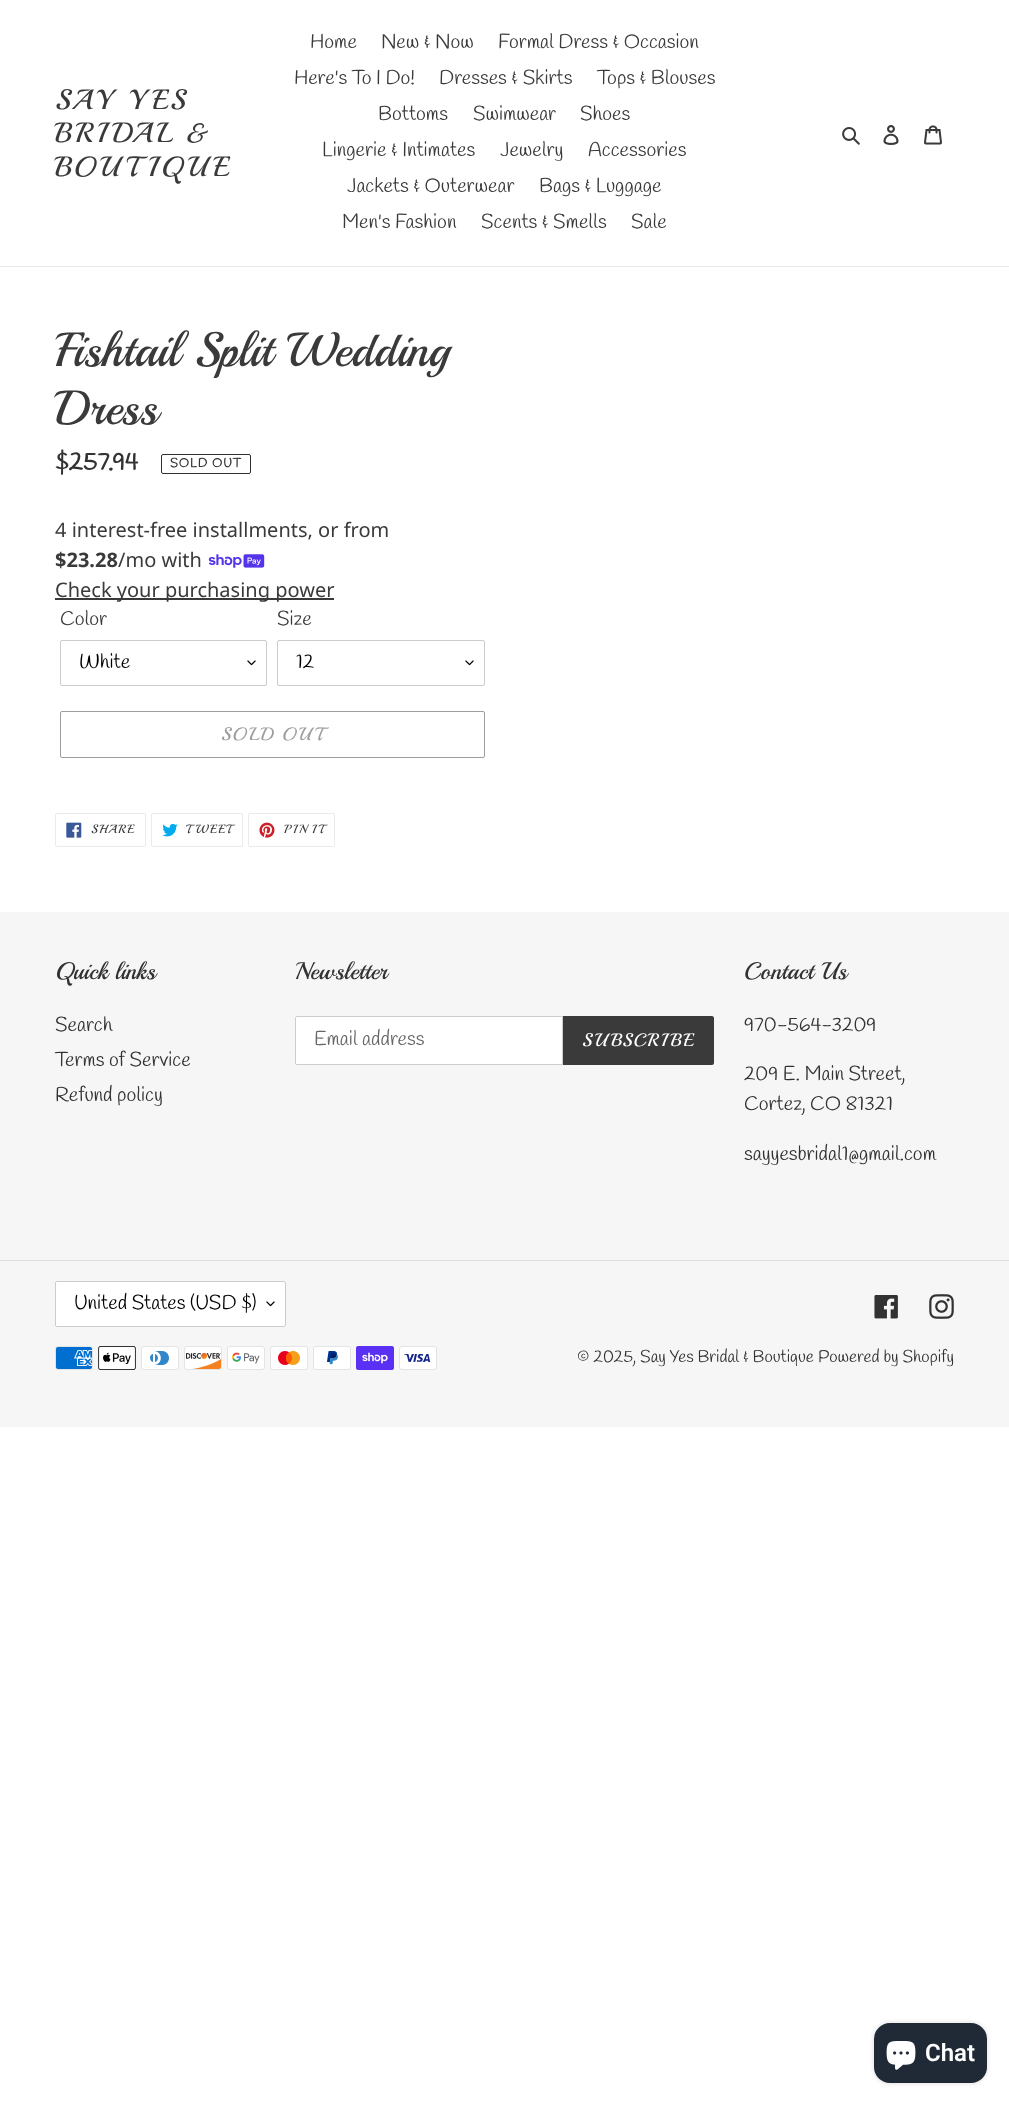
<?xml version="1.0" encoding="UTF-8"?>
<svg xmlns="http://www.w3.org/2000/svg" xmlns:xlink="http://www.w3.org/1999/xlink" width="1009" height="2104">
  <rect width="100%" height="100%" fill="#ffffff" />
  <rect y="266" width="1009" height="1" fill="#ebebeb" />
  <image x="842" y="127" width="18" height="18" xlink:href="image1.png" />
  <image x="883" y="125" width="16" height="20" xlink:href="image2.png" />
  <image x="924" y="125" width="18" height="20" xlink:href="image3.png" />
  <rect x="161.5" y="454.5" width="89" height="19" rx="1.5" fill="none" stroke="#333232" />
  <image x="208" y="554" width="57" height="14" xlink:href="image4.png" />
  <rect x="55" y="598" width="279" height="2" fill="#3a3a3a" />
  <image x="247" y="660" width="9" height="6" xlink:href="image5.png" />
  <rect x="60.5" y="640.5" width="206" height="45" rx="1.5" fill="none" stroke="#cccccc" />
  <image x="465" y="660" width="9" height="6" xlink:href="image5.png" />
  <rect x="277.5" y="640.5" width="207" height="45" rx="1.5" fill="none" stroke="#cccccc" />
  <rect x="60.5" y="711.5" width="424" height="46" rx="1.5" fill="none" stroke="#9d9d9d" />
  <rect x="55.5" y="813.5" width="90" height="33" rx="1.5" fill="none" stroke="#ebebeb" />
  <image x="66" y="822" width="16" height="16" xlink:href="image6.png" />
  <rect x="151.5" y="813.5" width="91" height="33" rx="1.5" fill="none" stroke="#ebebeb" />
  <image x="162" y="823" width="16" height="14" xlink:href="image7.png" />
  <rect x="248.5" y="813.5" width="86" height="33" rx="1.5" fill="none" stroke="#ebebeb" />
  <image x="259" y="822" width="16" height="16" xlink:href="image8.png" />
  <rect y="912" width="1009" height="515" fill="#f6f6f6" />
  <path d="M 297 1016.5 h 265.5 v 48 h -265.5 c -1 0 -1.5 -0.5 -1.5 -1.5 v -45 c 0 -1 0.5 -1.5 1.5 -1.5 z" fill="#ffffff" stroke="#cccccc" />
  <path d="M 563 1016 h 149 c 1 0 2 1 2 2 v 45 c 0 1 -1 2 -2 2 h -149 z" fill="#3a3a3a" />
  <rect y="1260" width="1009" height="1" fill="#dddddd" />
  <rect x="55" y="1281" width="231" height="46" rx="2" fill="#ffffff" />
  <image x="266" y="1301" width="9" height="6" xlink:href="image5.png" />
  <rect x="55.5" y="1281.5" width="230" height="45" rx="1.5" fill="none" stroke="#cccccc" />
  <image x="874" y="1295" width="24" height="24" xlink:href="image9.png" />
  <image x="929" y="1294" width="25" height="25" xlink:href="image10.png" />
  <image x="55" y="1346" width="38" height="24" xlink:href="image11.png" />
  <image x="98" y="1346" width="38" height="24" xlink:href="image12.png" />
  <image x="141" y="1346" width="38" height="24" xlink:href="image13.png" />
  <image x="184" y="1346" width="38" height="24" xlink:href="image14.png" />
  <image x="227" y="1346" width="38" height="24" xlink:href="image15.png" />
  <image x="270" y="1346" width="38" height="24" xlink:href="image16.png" />
  <image x="313" y="1346" width="38" height="24" xlink:href="image17.png" />
  <image x="356" y="1346" width="38" height="24" xlink:href="image18.png" />
  <image x="399" y="1346" width="38" height="24" xlink:href="image19.png" />
  <rect x="874" y="2023" width="113" height="60" rx="16" fill="#000000" fill-opacity="0.15" filter="blur(2.5px)" />
  <rect x="874" y="2023" width="113" height="60" rx="16" fill="#202a36" />
  <image x="886" y="2041" width="30" height="29" xlink:href="image20.png" />
  <text x="55" y="109" style="font-family: Playball; font-size: 28px; letter-spacing: 2.75px; fill: #3a3a3a">SAY YES</text>
  <text x="55" y="142" style="font-family: Playball; font-size: 28px; letter-spacing: 2.75px; fill: #3a3a3a">BRIDAL &amp;</text>
  <text x="55" y="176" style="font-family: Playball; font-size: 28px; letter-spacing: 2.75px; fill: #3a3a3a">BOUTIQUE</text>
  <text x="310" y="48" style="font-family: Handlee; font-size: 20px; fill: #3a3a3a">Home</text>
  <text x="381" y="48" style="font-family: Handlee; font-size: 20px; fill: #3a3a3a">New &amp; Now</text>
  <text x="498" y="48" style="font-family: Handlee; font-size: 20px; fill: #3a3a3a">Formal Dress &amp; Occasion</text>
  <text x="294" y="84" style="font-family: Handlee; font-size: 20px; fill: #3a3a3a">Here's To I Do!</text>
  <text x="439" y="84" style="font-family: Handlee; font-size: 20px; fill: #3a3a3a">Dresses &amp; Skirts</text>
  <text x="597" y="84" style="font-family: Handlee; font-size: 20px; fill: #3a3a3a">Tops &amp; Blouses</text>
  <text x="378" y="120" style="font-family: Handlee; font-size: 20px; fill: #3a3a3a">Bottoms</text>
  <text x="473" y="120" style="font-family: Handlee; font-size: 20px; fill: #3a3a3a">Swimwear</text>
  <text x="580" y="120" style="font-family: Handlee; font-size: 20px; fill: #3a3a3a">Shoes</text>
  <text x="322" y="156" style="font-family: Handlee; font-size: 20px; fill: #3a3a3a">Lingerie &amp; Intimates</text>
  <text x="500" y="156" style="font-family: Handlee; font-size: 20px; fill: #3a3a3a">Jewelry</text>
  <text x="588" y="156" style="font-family: Handlee; font-size: 20px; fill: #3a3a3a">Accessories</text>
  <text x="347" y="192" style="font-family: Handlee; font-size: 20px; fill: #3a3a3a">Jackets &amp; Outerwear</text>
  <text x="539" y="192" style="font-family: Handlee; font-size: 20px; fill: #3a3a3a">Bags &amp; Luggage</text>
  <text x="342" y="228" style="font-family: Handlee; font-size: 20px; fill: #3a3a3a">Men's Fashion</text>
  <text x="481" y="228" style="font-family: Handlee; font-size: 20px; fill: #3a3a3a">Scents &amp; Smells</text>
  <text x="631" y="228" style="font-family: Handlee; font-size: 20px; fill: #3a3a3a">Sale</text>
  <text x="55" y="366" style="font-family: Playball; font-size: 48px; fill: #3a3a3a">Fishtail Split Wedding</text>
  <text x="55" y="424" style="font-family: Playball; font-size: 48px; fill: #3a3a3a">Dress</text>
  <text x="55" y="470" style="font-family: Handlee; font-size: 25px; font-weight: bold; fill: #333232">$257.94</text>
  <text x="170" y="467" style="font-family: Handlee; font-size: 12.5px; font-weight: bold; letter-spacing: 1px; fill: #333232">SOLD OUT</text>
  <text x="55" y="537" style="font-family: Noto Sans; font-size: 20px; fill: #3a3a3a">4 interest-free installments, or from</text>
  <text x="55" y="567" style="font-family: Noto Sans; font-size: 20px; font-weight: bold; fill: #3a3a3a">$23.28</text>
  <text x="118" y="567" style="font-family: Noto Sans; font-size: 20px; fill: #3a3a3a">/mo with</text>
  <text x="55" y="597" style="font-family: Noto Sans; font-size: 20px; fill: #3a3a3a">Check your purchasing power</text>
  <text x="60" y="625" style="font-family: Handlee; font-size: 20px; fill: #3a3a3a">Color</text>
  <text x="79" y="668" style="font-family: Handlee; font-size: 20px; fill: #000000">White</text>
  <text x="277" y="625" style="font-family: Handlee; font-size: 20px; fill: #3a3a3a">Size</text>
  <text x="296" y="668" style="font-family: Handlee; font-size: 20px; fill: #000000">12</text>
  <text x="221" y="740" style="font-family: Playball; font-size: 18px; letter-spacing: 1.5px; fill: #9d9d9d">SOLD OUT</text>
  <text x="91" y="833" style="font-family: Playball; font-size: 12px; letter-spacing: 1px; fill: #3a3a3a">SHARE</text>
  <text x="186" y="833" style="font-family: Playball; font-size: 12px; letter-spacing: 1px; fill: #3a3a3a">TWEET</text>
  <text x="284" y="833" style="font-family: Playball; font-size: 12px; letter-spacing: 1px; fill: #3a3a3a">PIN IT</text>
  <text x="55" y="979" style="font-family: Playball; font-size: 24px; fill: #333232">Quick links</text>
  <text x="55" y="1031" style="font-family: Handlee; font-size: 20px; fill: #333232">Search</text>
  <text x="55" y="1066" style="font-family: Handlee; font-size: 20px; fill: #333232">Terms of Service</text>
  <text x="55" y="1101" style="font-family: Handlee; font-size: 20px; fill: #333232">Refund policy</text>
  <text x="295" y="979" style="font-family: Playball; font-size: 24px; fill: #333232">Newsletter</text>
  <text x="314" y="1045" style="font-family: Handlee; font-size: 20px; fill: #666666">Email address</text>
  <text x="582" y="1046" style="font-family: Playball; font-size: 18px; letter-spacing: 1.5px; fill: #ffffff">SUBSCRIBE</text>
  <text x="744" y="979" style="font-family: Playball; font-size: 24px; fill: #333232">Contact Us</text>
  <text x="744" y="1031" style="font-family: Handlee; font-size: 20px; fill: #333232">970-564-3209</text>
  <text x="744" y="1080" style="font-family: Handlee; font-size: 20px; fill: #333232">209 E. Main Street,</text>
  <text x="744" y="1110" style="font-family: Handlee; font-size: 20px; fill: #333232">Cortez, CO 81321</text>
  <text x="744" y="1160" style="font-family: Handlee; font-size: 20px; fill: #333232">sayyesbridal1@gmail.com</text>
  <text x="74" y="1309" style="font-family: Handlee; font-size: 20px; fill: #000000">United States (USD $)</text>
  <text x="577" y="1362" style="font-family: Handlee; font-size: 17px; fill: #333232">© 2025, Say Yes Bridal &amp; Boutique</text>
  <text x="818" y="1362" style="font-family: Handlee; font-size: 17px; fill: #333232">Powered by Shopify</text>
  <text x="925" y="2061" style="font-family: Roboto; font-size: 24px; font-weight: 600; fill: #ffffff">Chat</text>
</svg>
